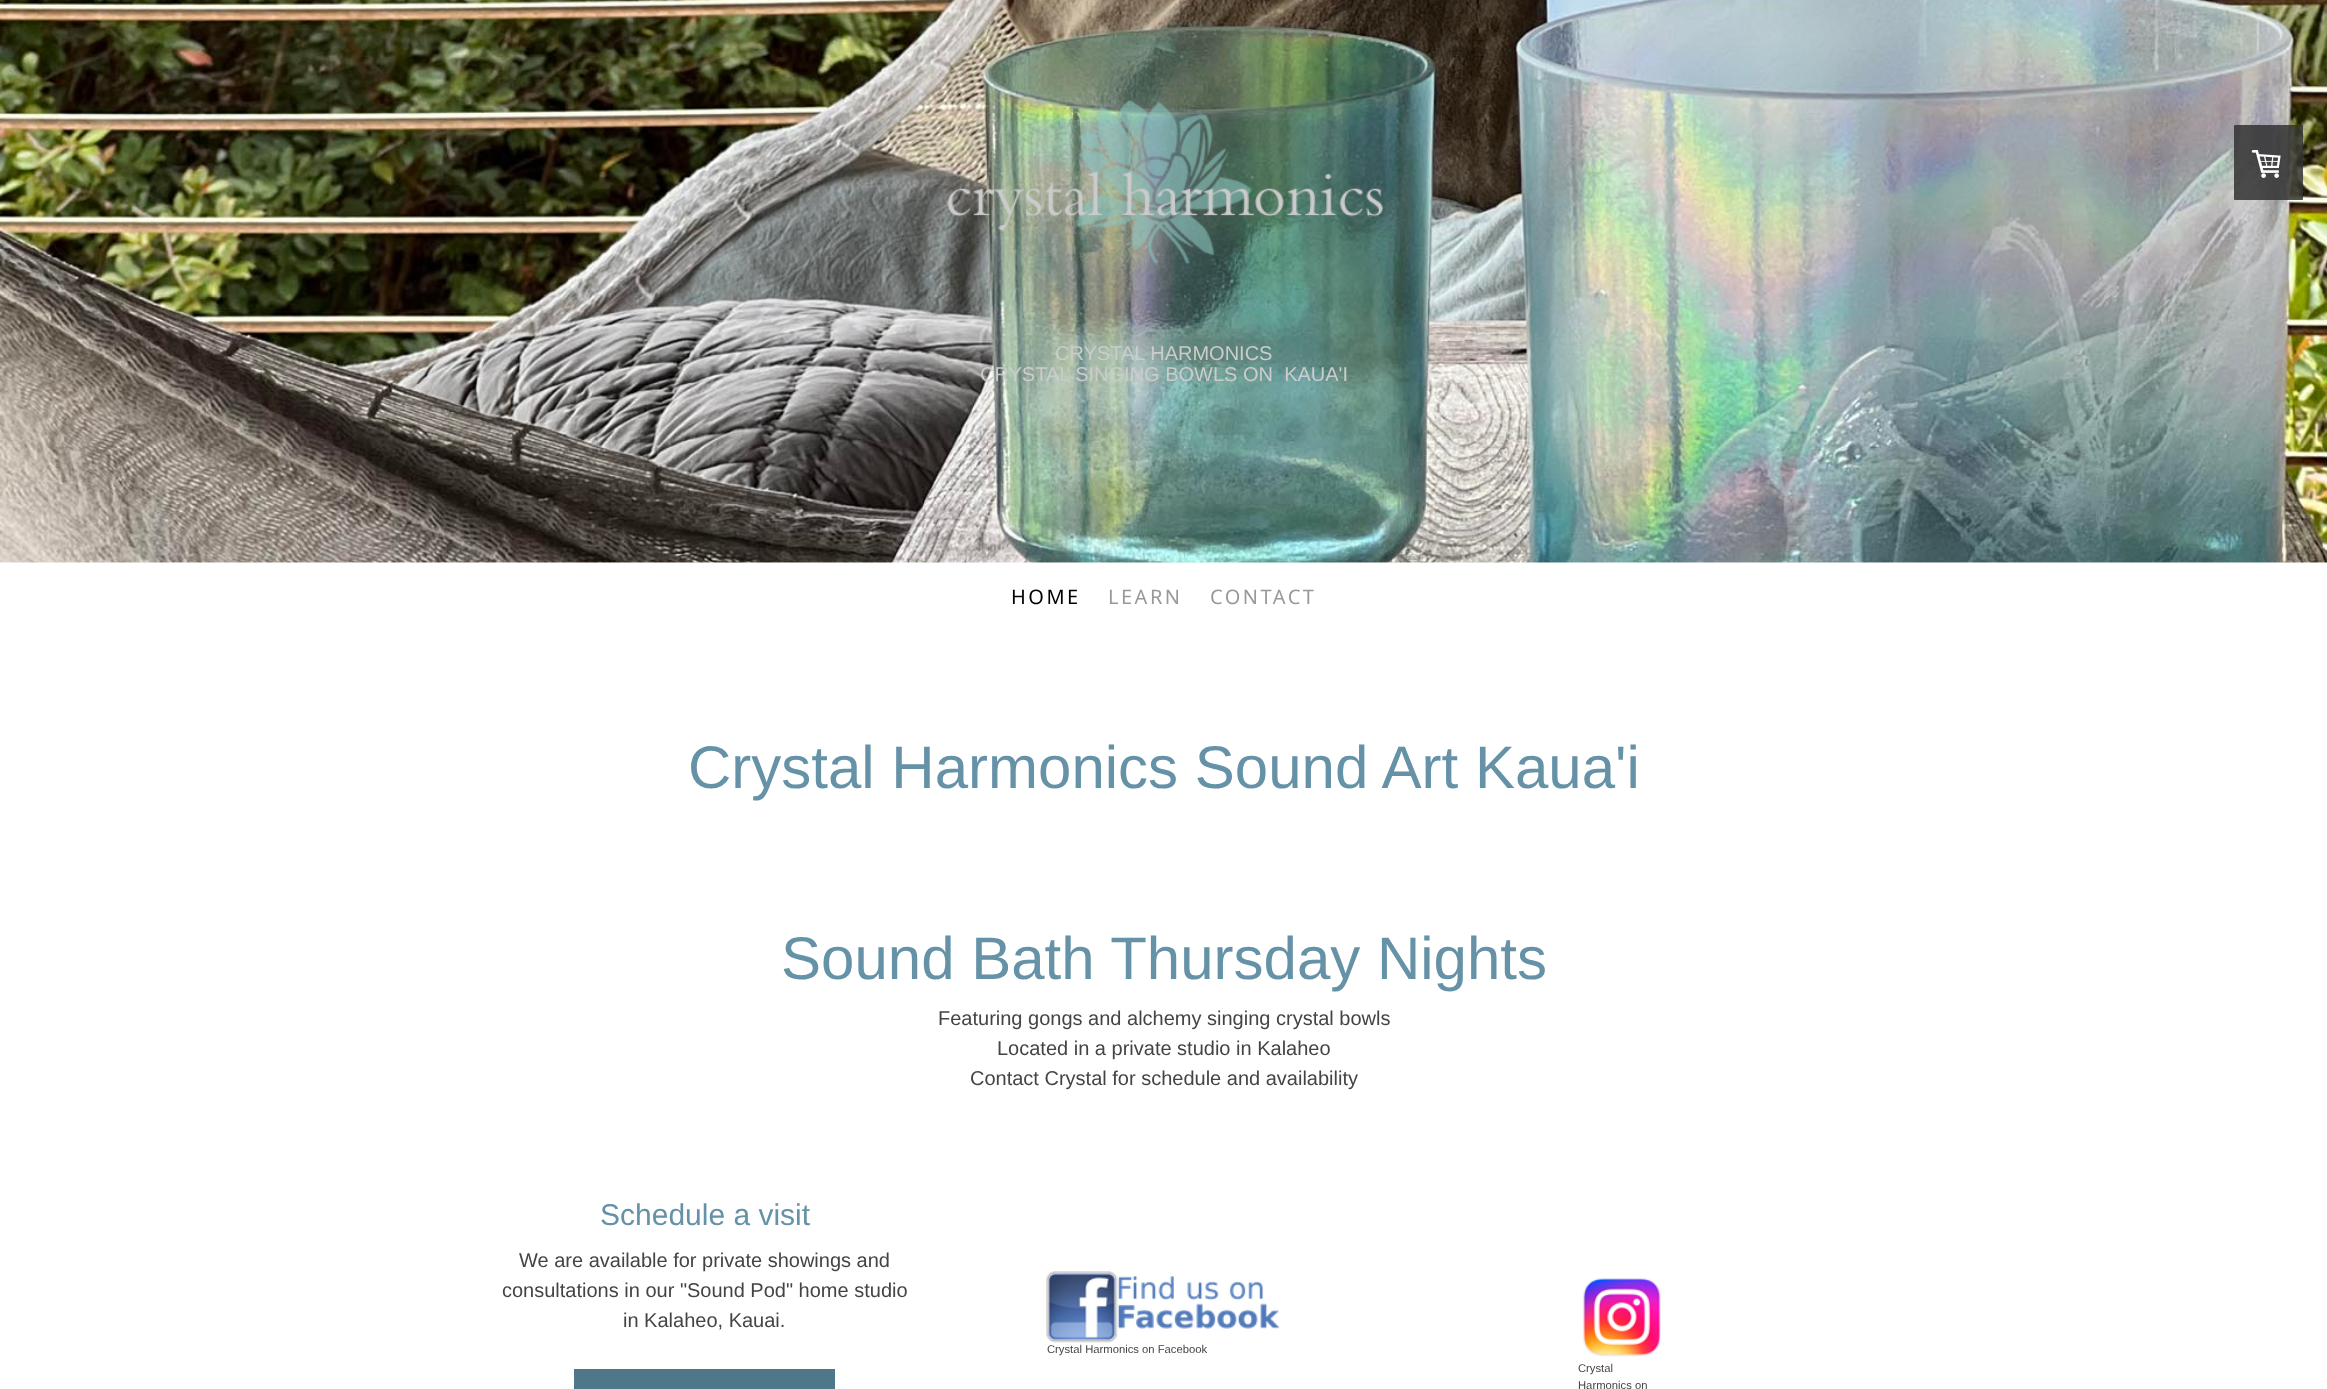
<?xml version="1.0" encoding="UTF-8"?>
<svg xmlns="http://www.w3.org/2000/svg" xmlns:xlink="http://www.w3.org/1999/xlink" width="2327" height="1389">
  <rect width="100%" height="100%" fill="#ffffff" />
  <image x="0" y="0" width="2327" height="563" xlink:href="image2.png" />
  <rect x="2234" y="125" width="69" height="75" rx="1" fill="#333333" fill-opacity="0.85" />
  <image x="2251" y="150" width="30" height="28" xlink:href="image1.png" />
  <image x="947" y="100" width="436" height="164" xlink:href="image3.png" />
  <rect x="574" y="1369" width="261" height="20" fill="#4f778a" />
  <image x="1046" y="1271" width="234" height="72" xlink:href="image4.png" />
  <image x="1582" y="1278" width="80" height="79" xlink:href="image5.png" />
  <text x="1055" y="360" style="font-family: Liberation Sans; font-size: 20px; fill: #cccccc">CRYSTAL HARMONICS</text>
  <text x="980" y="381" style="font-family: Liberation Sans; font-size: 20px; fill: #cccccc" xml:space="preserve">CRYSTAL SINGING BOWLS ON  KAUA'I</text>
  <text x="1011" y="604" style="font-family: Noto Sans; font-size: 20px; letter-spacing: 2.5px; fill: #000000">HOME</text>
  <text x="1108" y="604" style="font-family: Noto Sans; font-size: 20px; letter-spacing: 2.5px; fill: #999999">LEARN</text>
  <text x="1210" y="604" style="font-family: Noto Sans; font-size: 20px; letter-spacing: 2.5px; fill: #999999">CONTACT</text>
  <text x="688" y="788" style="font-family: Liberation Sans; font-size: 60px; fill: #6592a7">Crystal Harmonics Sound Art Kaua'i</text>
  <text x="781" y="979" style="font-family: Liberation Sans; font-size: 60px; fill: #6592a7">Sound Bath Thursday Nights</text>
  <text x="938" y="1025" style="font-family: Liberation Sans; font-size: 20px; fill: #444444">Featuring gongs and alchemy singing crystal bowls</text>
  <text x="997" y="1055" style="font-family: Liberation Sans; font-size: 20px; fill: #444444">Located in a private studio in Kalaheo</text>
  <text x="970" y="1085" style="font-family: Liberation Sans; font-size: 20px; fill: #444444">Contact Crystal for schedule and availability</text>
  <text x="600" y="1225" style="font-family: Liberation Sans; font-size: 30px; fill: #6592a7">Schedule a visit</text>
  <text x="519" y="1267" style="font-family: Liberation Sans; font-size: 20px; fill: #444444">We are available for private showings and</text>
  <text x="502" y="1297" style="font-family: Liberation Sans; font-size: 20px; fill: #444444">consultations in our "Sound Pod" home studio</text>
  <text x="623" y="1327" style="font-family: Liberation Sans; font-size: 20px; fill: #444444">in Kalaheo, Kauai.</text>
  <text x="1047" y="1353" style="font-family: Liberation Sans; font-size: 11.25px; fill: #444444">Crystal Harmonics on Facebook</text>
  <text x="1578" y="1372" style="font-family: Liberation Sans; font-size: 11.25px; fill: #444444">Crystal</text>
  <text x="1578" y="1389" style="font-family: Liberation Sans; font-size: 11.25px; fill: #444444">Harmonics on</text>
</svg>
